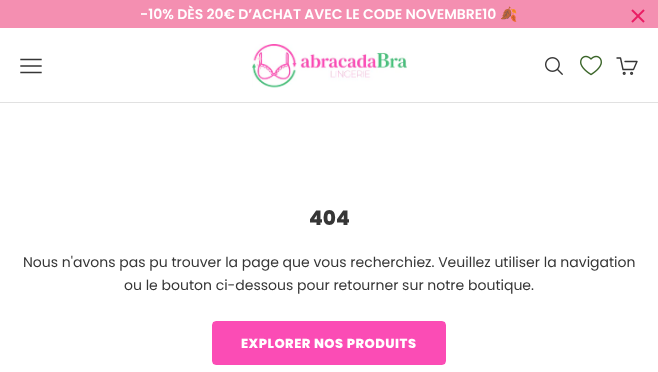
<?xml version="1.0" encoding="UTF-8"?>
<svg xmlns="http://www.w3.org/2000/svg" xmlns:xlink="http://www.w3.org/1999/xlink" width="658" height="372">
  <defs>
    <clipPath id="clip1"><rect x="212" y="321" width="234" height="44" rx="4" /></clipPath>
  </defs>
  <rect width="100%" height="100%" fill="#ffffff" />
  <rect width="658" height="28" fill="#f48fb1" />
  <image x="631" y="9" width="14" height="14" xlink:href="image1.png" />
  <rect y="102" width="658" height="1" fill="#e1e1e1" />
  <path d="M 21 72.5 h 20 m -20 -6.5 h 20 m -20 -6.5 h 20" fill="none" stroke="#363636" stroke-width="1.4" stroke-linecap="square" />
  <image x="252" y="44" width="155" height="44" xlink:href="image2.png" />
  <image x="545" y="57" width="18" height="18" xlink:href="image3.png" />
  <image x="580" y="55" width="22" height="21" xlink:href="image4.png" />
  <path d="M 625 61.5 h 12 l -3.5 8 h -10.5 l -2.5 -11.5 h -3.5" fill="none" stroke="#363636" stroke-width="1.4" stroke-linecap="round" stroke-linejoin="round" />
  <circle cx="624.2" cy="73.3" r="0.9" fill="none" stroke="#363636" stroke-width="1.4" />
  <circle cx="631.6" cy="73.3" r="0.9" fill="none" stroke="#363636" stroke-width="1.4" />
  <g clip-path="url(#clip1)">
    <rect x="213" y="322" width="232" height="42" fill="#fb4cb5" />
  </g>
  <rect x="212.5" y="321.5" width="233" height="43" rx="3.5" fill="none" stroke="#fb4cb5" />
  <text x="140" y="19" style="font-family: Poppins; font-size: 14px; font-weight: 600; fill: #ffffff">-10% DÈS 20€ D’ACHAT AVEC LE CODE NOVEMBRE10</text>
  <text x="500" y="19" style="font-family: Noto Color Emoji; font-size: 14px; font-weight: bold; fill: #ffffff">🍂</text>
  <text x="309" y="225" style="font-family: Poppins; font-size: 20px; font-weight: 800; fill: #363636">404</text>
  <text x="23" y="267" style="font-family: Poppins; font-size: 14px; fill: #363636">Nous n'avons pas pu trouver la page que vous recherchiez. Veuillez utiliser la navigation</text>
  <text x="124" y="290" style="font-family: Poppins; font-size: 14px; fill: #363636">ou le bouton ci-dessous pour retourner sur notre boutique.</text>
  <text x="241" y="348" style="font-family: Poppins; font-size: 13px; font-weight: 800; letter-spacing: 0.5px; fill: #ffffff">EXPLORER NOS PRODUITS</text>
</svg>
